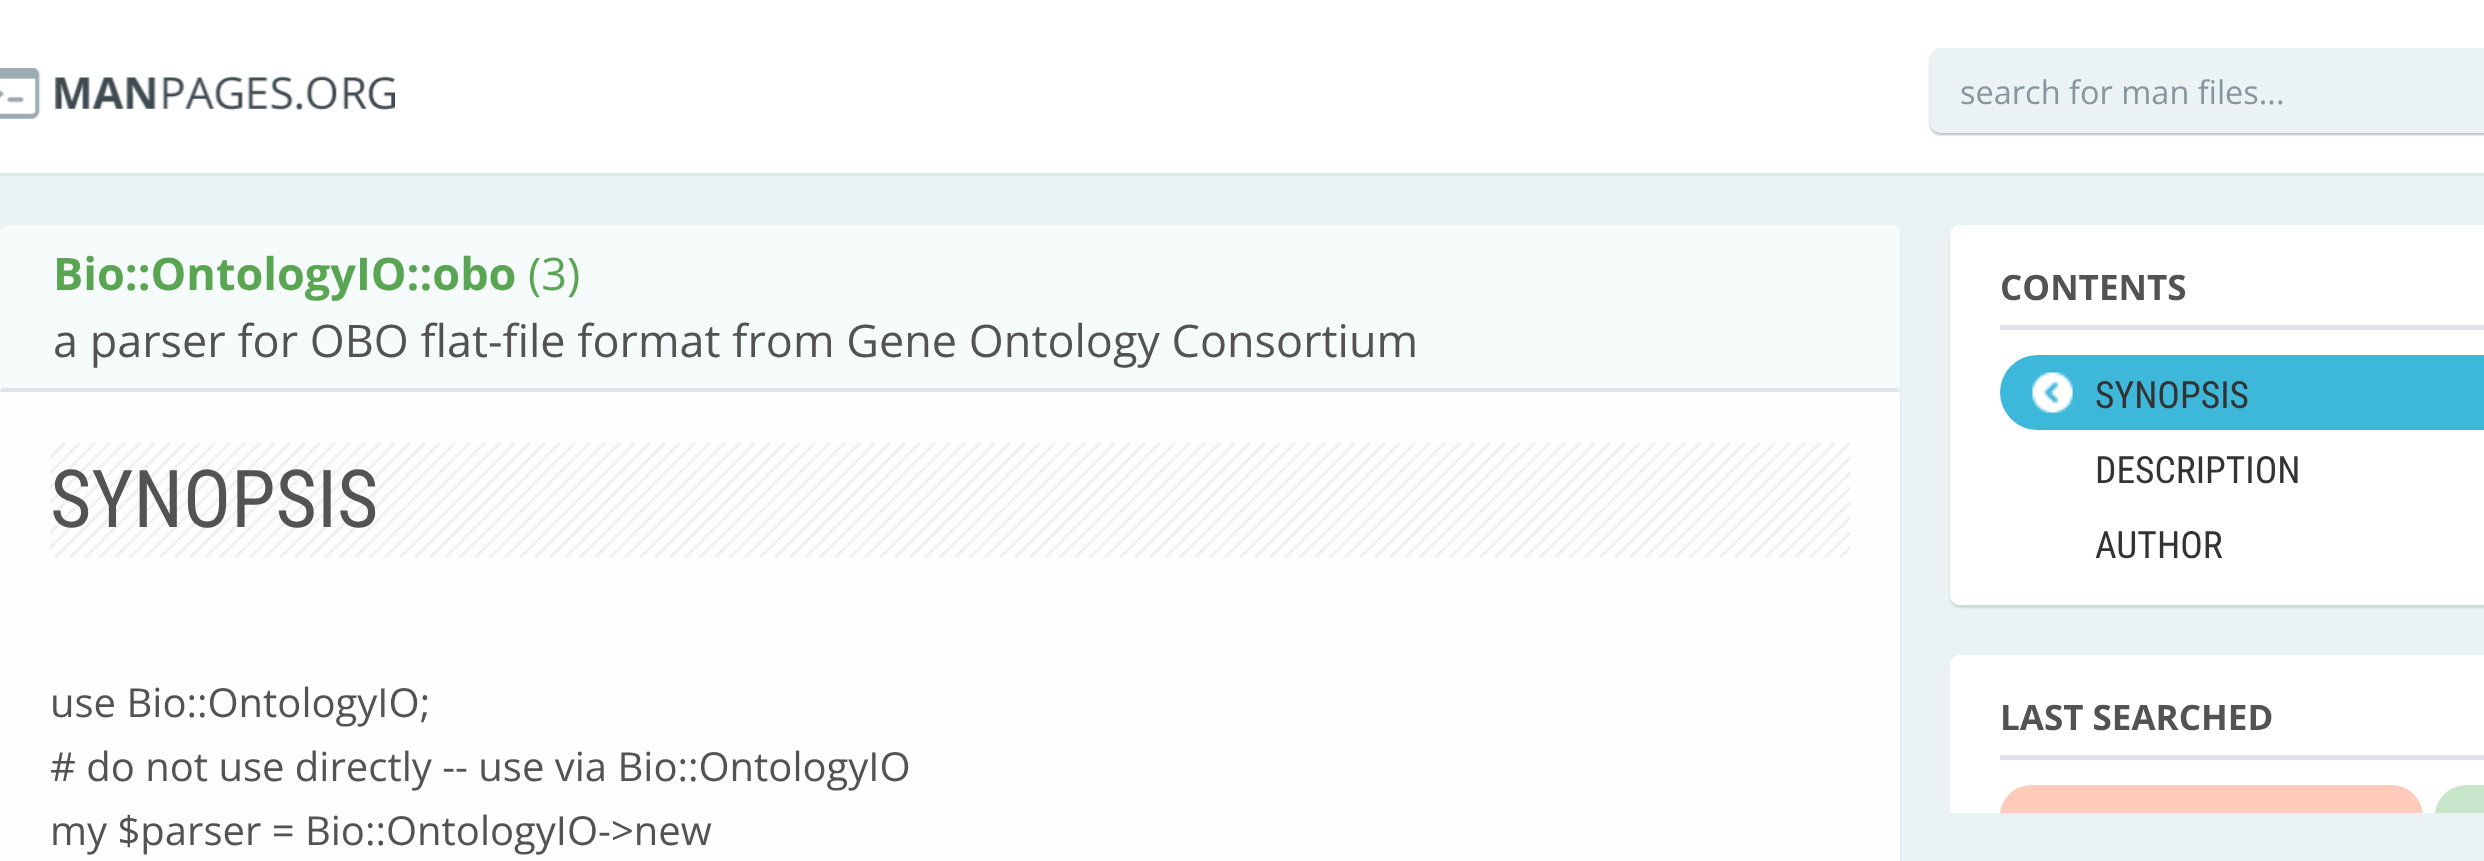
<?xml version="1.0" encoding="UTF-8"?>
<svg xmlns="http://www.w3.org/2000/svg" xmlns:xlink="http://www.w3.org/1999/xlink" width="2484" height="861">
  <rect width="100%" height="100%" fill="#eaf2f4" />
  <rect width="2484" height="173" fill="#ffffff" />
  <rect y="173" width="2484" height="3" fill="#dce5e7" />
  <image x="0" y="68" width="395" height="51" xlink:href="image1.png" />
  <rect x="1930" y="50" width="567" height="85" rx="10" fill="#062f37" fill-opacity="0.3" filter="blur(1px)" />
  <rect x="1930" y="48" width="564" height="85" rx="10" fill="#eaf2f4" />
  <rect y="228" width="1900" height="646" rx="10" fill="#000000" fill-opacity="0.1" filter="blur(1px)" />
  <path d="M 10 225 h 1880 c 5.5 0 10 4.5 10 10 v 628 h -1900 v -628 c 0 -5.5 4.5 -10 10 -10 z" fill="#fefefe" />
  <path d="M 8 225 h 1884 c 4.5 0 8 3.5 8 8 v 160 h -1900 v -160 c 0 -4.5 3.5 -8 8 -8 z" fill="#f6fbfc" />
  <path d="M 1900 392 h -1900 l 2 -4 h 1896 z" fill="#dfe3e9" />
  <image x="50" y="443" width="1800" height="115" xlink:href="image2.png" />
  <rect x="1950" y="228" width="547" height="380" rx="10" fill="#000000" fill-opacity="0.1" filter="blur(1px)" />
  <path d="M 1960 225 h 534 v 380 h -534 c -5.5 0 -10 -4.5 -10 -10 v -360 c 0 -5.5 4.5 -10 10 -10 z" fill="#ffffff" />
  <rect x="2000" y="325" width="484" height="5" fill="#dfe3e9" />
  <rect x="2000" y="355" width="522" height="75" rx="37.5" fill="#3db8db" />
  <image x="2032" y="372" width="41" height="41" xlink:href="image3.png" />
  <path d="M 1960 655 h 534 v 158 h -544 v -148 c 0 -5.5 4.5 -10 10 -10 z" fill="#ffffff" />
  <rect x="2000" y="755" width="484" height="5" fill="#dfe3e9" />
  <path d="M 2031.5 785 h 360 c 17.5 0 31.5 14 31.5 31.5 v -3.5 h -423 v 3.5 c 0 -17.5 14 -31.5 31.5 -31.5 z" fill="#ffccbc" />
  <path d="M 2466.5 785 h 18 c 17.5 0 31.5 14 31.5 31.5 v -3.5 h -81 v 3.5 c 0 -17.5 14 -31.5 31.5 -31.5 z" fill="#c8e6c9" />
  <text x="1960" y="104" style="font-family: Open Sans; font-size: 32.5px; fill: #86969d">search for man files...</text>
  <text x="53" y="290" style="font-family: Open Sans; font-size: 45px; font-weight: bold; fill: #59a552">Bio::OntologyIO::obo</text>
  <text x="528" y="290" style="font-family: Open Sans; font-size: 45px; fill: #59a552">(3)</text>
  <text x="53" y="357" style="font-family: Open Sans; font-size: 45px; fill: #535353">a parser for OBO flat-file format from Gene Ontology Consortium</text>
  <text x="50" y="527" style="font-family: Roboto Condensed; font-size: 80px; fill: #535353">SYNOPSIS</text>
  <text x="50" y="717" style="font-family: Open Sans; font-size: 40px; fill: #535353">use Bio::OntologyIO;</text>
  <text x="50" y="781" style="font-family: Open Sans; font-size: 40px; fill: #535353"># do not use directly -- use via Bio::OntologyIO</text>
  <text x="50" y="845" style="font-family: Open Sans; font-size: 40px; fill: #535353">my $parser = Bio::OntologyIO-&gt;new</text>
  <text x="2000" y="300" style="font-family: Open Sans; font-size: 35px; font-weight: bold; fill: #535353">CONTENTS</text>
  <text x="2095" y="408" style="font-family: Roboto Condensed; font-size: 37.5px; fill: #333333">SYNOPSIS</text>
  <text x="2095" y="483" style="font-family: Roboto Condensed; font-size: 37.5px; fill: #333333">DESCRIPTION</text>
  <text x="2095" y="558" style="font-family: Roboto Condensed; font-size: 37.5px; fill: #333333">AUTHOR</text>
  <text x="2000" y="730" style="font-family: Open Sans; font-size: 35px; font-weight: bold; fill: #535353">LAST SEARCHED</text>
</svg>
